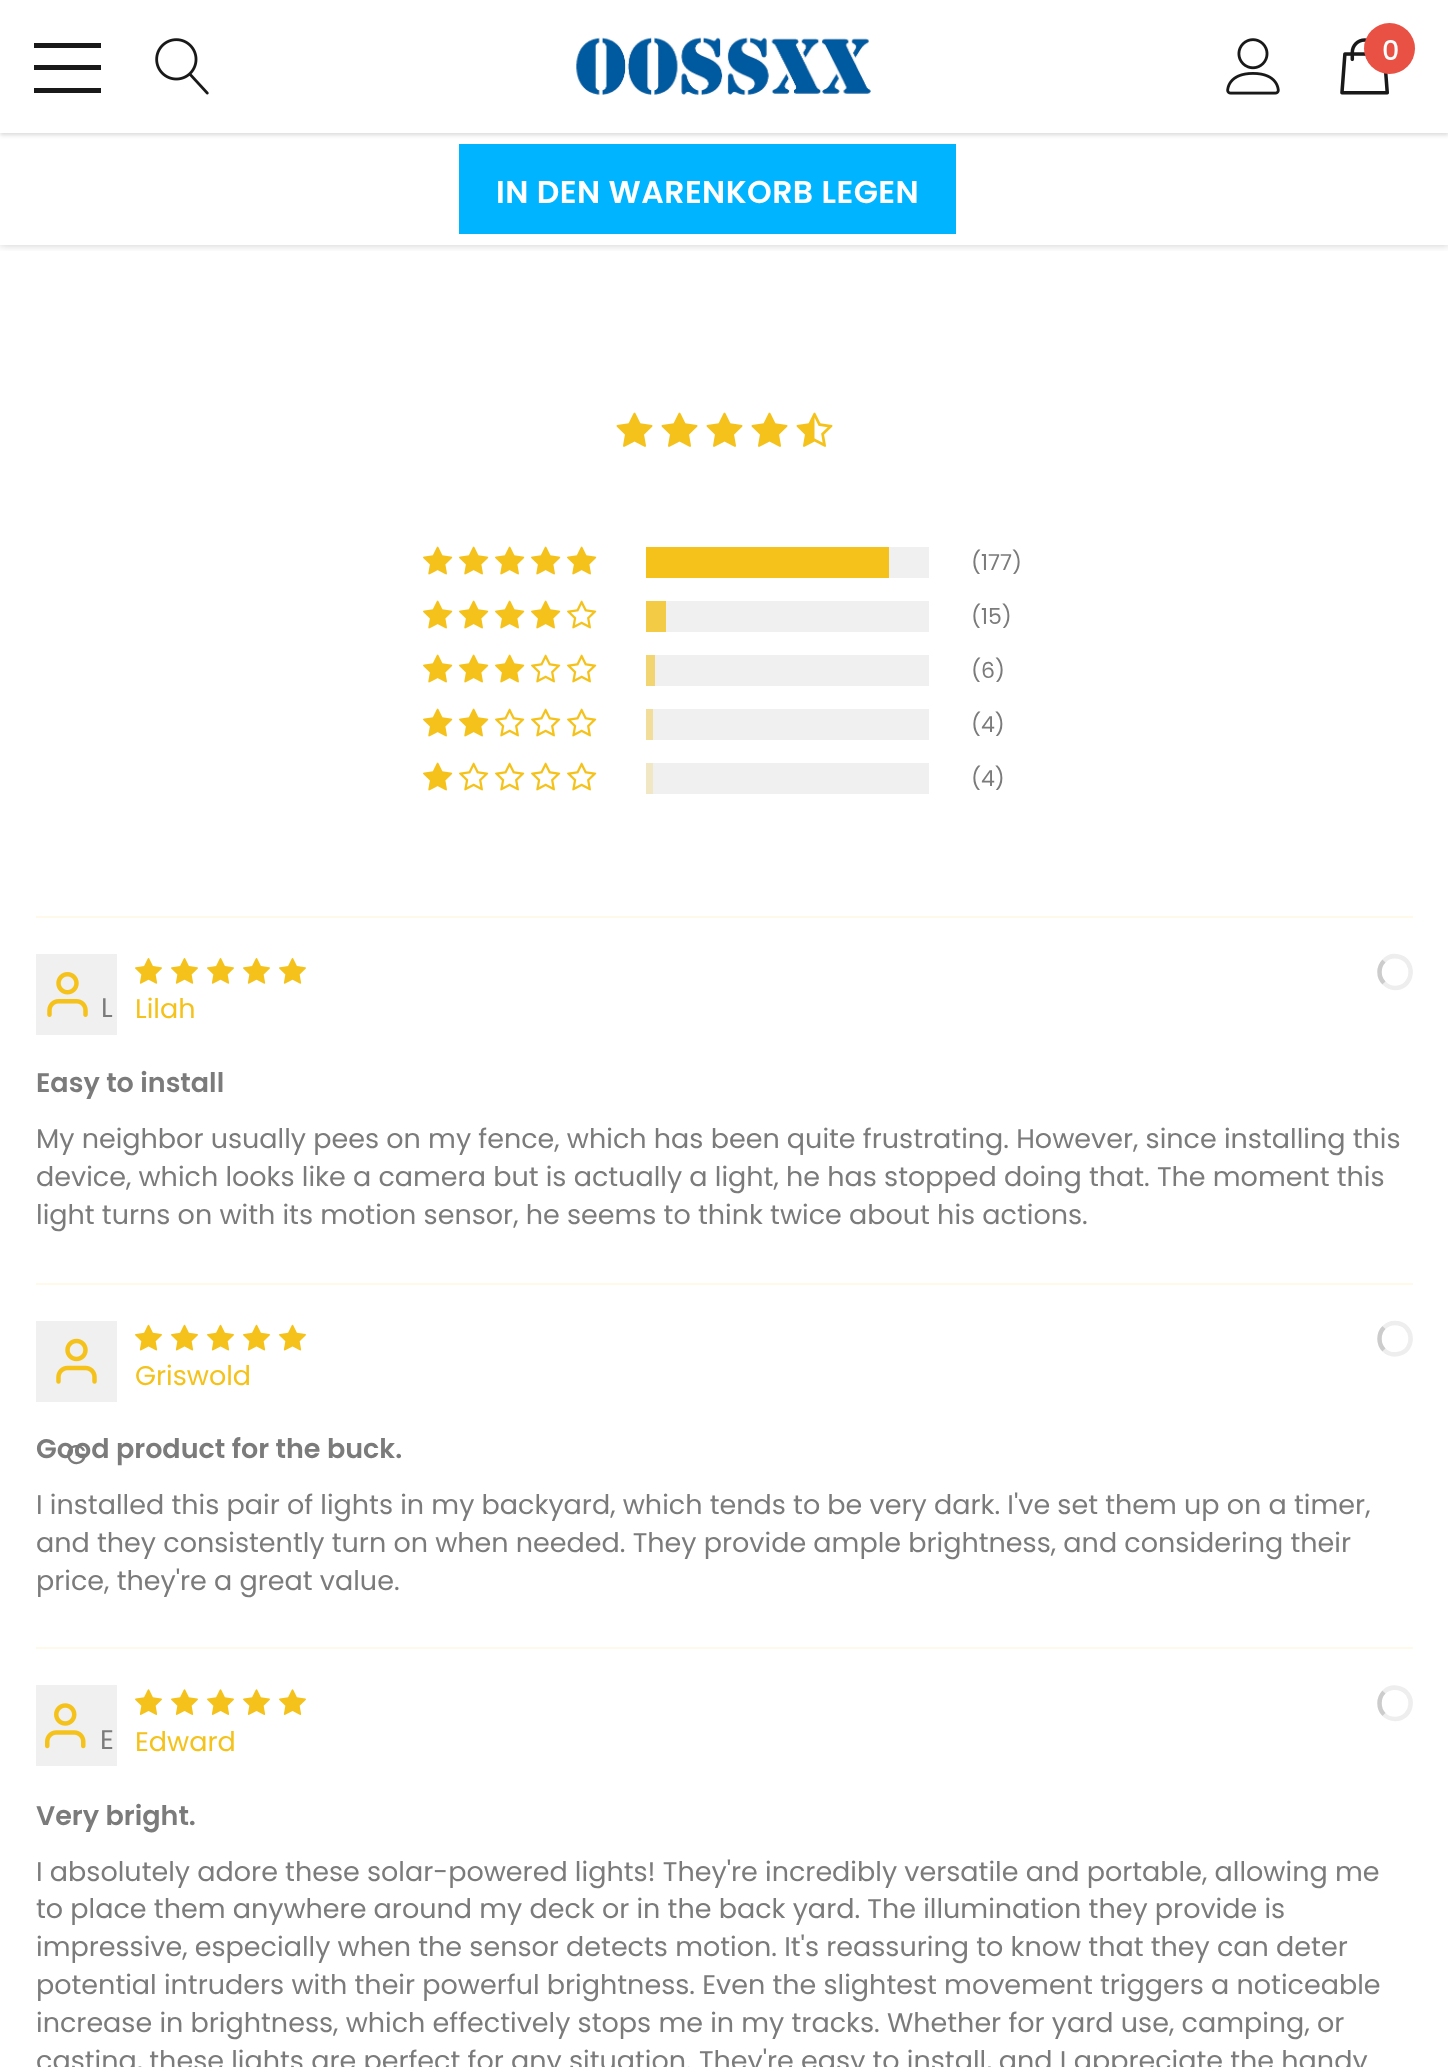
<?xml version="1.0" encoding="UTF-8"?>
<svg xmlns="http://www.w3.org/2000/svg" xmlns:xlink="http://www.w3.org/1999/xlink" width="1448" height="2067">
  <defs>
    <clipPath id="clip1"><rect x="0" y="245" width="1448" height="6" /></clipPath>
  </defs>
  <rect width="100%" height="100%" fill="#ffffff" />
  <rect y="2" width="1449" height="133" fill="#000000" fill-opacity="0.15" filter="blur(2px)" />
  <g clip-path="url(#clip1)">
    <rect y="133" width="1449" height="112" fill="#000000" fill-opacity="0.2" filter="blur(4.5px)" />
  </g>
  <rect width="1448" height="133" fill="#ffffff" />
  <rect x="34" y="65" width="67" height="5" fill="#191919" />
  <rect x="34" y="43" width="67" height="5" fill="#191919" />
  <rect x="34" y="88" width="67" height="5" fill="#191919" />
  <image x="155" y="38" width="54" height="57" xlink:href="image1.png" />
  <image x="576" y="37" width="295" height="58" xlink:href="image2.png" />
  <image x="1226" y="38" width="54" height="57" xlink:href="image3.png" />
  <image x="1340" y="38" width="49" height="57" xlink:href="image4.png" />
  <circle cx="1389.5" cy="48.5" r="25.5" fill="#e95144" />
  <rect x="459" y="144" width="497" height="90" fill="#00b4ff" />
  <image x="616" y="412" width="37" height="35" xlink:href="image5.png" />
  <image x="661" y="412" width="37" height="35" xlink:href="image5.png" />
  <image x="706" y="412" width="37" height="35" xlink:href="image5.png" />
  <image x="751" y="412" width="37" height="35" xlink:href="image5.png" />
  <image x="796" y="412" width="37" height="35" xlink:href="image6.png" />
  <image x="423" y="546" width="30" height="29" xlink:href="image7.png" />
  <image x="459" y="546" width="30" height="29" xlink:href="image7.png" />
  <image x="495" y="546" width="30" height="29" xlink:href="image7.png" />
  <image x="531" y="546" width="30" height="29" xlink:href="image7.png" />
  <image x="567" y="546" width="30" height="29" xlink:href="image7.png" />
  <rect x="889" y="547" width="40" height="31" fill="#f0f0f0" />
  <rect x="646" y="547" width="243" height="31" fill="#f4c21a" />
  <image x="423" y="600" width="30" height="29" xlink:href="image7.png" />
  <image x="459" y="600" width="30" height="29" xlink:href="image7.png" />
  <image x="495" y="600" width="30" height="29" xlink:href="image7.png" />
  <image x="531" y="600" width="30" height="29" xlink:href="image7.png" />
  <image x="567" y="600" width="30" height="29" xlink:href="image8.png" />
  <rect x="666" y="601" width="263" height="31" fill="#f0f0f0" />
  <rect x="646" y="601" width="20" height="31" fill="#f3cb45" />
  <image x="423" y="654" width="30" height="29" xlink:href="image7.png" />
  <image x="459" y="654" width="30" height="29" xlink:href="image7.png" />
  <image x="495" y="654" width="30" height="29" xlink:href="image7.png" />
  <image x="531" y="654" width="30" height="29" xlink:href="image8.png" />
  <image x="567" y="654" width="30" height="29" xlink:href="image8.png" />
  <rect x="655" y="655" width="274" height="31" fill="#f0f0f0" />
  <rect x="646" y="655" width="9" height="31" fill="#f2d470" />
  <image x="423" y="708" width="30" height="29" xlink:href="image7.png" />
  <image x="459" y="708" width="30" height="29" xlink:href="image7.png" />
  <image x="495" y="708" width="30" height="29" xlink:href="image8.png" />
  <image x="531" y="708" width="30" height="29" xlink:href="image8.png" />
  <image x="567" y="708" width="30" height="29" xlink:href="image8.png" />
  <rect x="653" y="709" width="276" height="31" fill="#f0f0f0" />
  <rect x="646" y="709" width="7" height="31" fill="#f2de9a" />
  <image x="423" y="762" width="30" height="29" xlink:href="image7.png" />
  <image x="459" y="762" width="30" height="29" xlink:href="image8.png" />
  <image x="495" y="762" width="30" height="29" xlink:href="image8.png" />
  <image x="531" y="762" width="30" height="29" xlink:href="image8.png" />
  <image x="567" y="762" width="30" height="29" xlink:href="image8.png" />
  <rect x="653" y="763" width="276" height="31" fill="#f0f0f0" />
  <rect x="646" y="763" width="7" height="31" fill="#f1e7c5" />
  <rect x="36" y="916" width="1377" height="2" fill="#fef9e8" />
  <image x="135" y="958" width="27" height="26" xlink:href="image9.png" />
  <image x="171" y="958" width="27" height="26" xlink:href="image9.png" />
  <image x="207" y="958" width="27" height="26" xlink:href="image9.png" />
  <image x="243" y="958" width="27" height="26" xlink:href="image9.png" />
  <image x="279" y="958" width="27" height="26" xlink:href="image9.png" />
  <path d="M 1384 961 c 3.5 -4 9 -5.5 14 -4.5 c 18.5 3.5 16 31.5 -3 31.5 c -4 0 -8 -2 -11 -5" fill="none" stroke="#eeeeee" stroke-width="4.5" />
  <path d="M 1384 983 c -6 -6 -6 -16 0 -22" fill="none" stroke="#cccccc" stroke-width="4.5" />
  <rect x="36" y="954" width="81" height="81" fill="#f0f0f0" />
  <image x="47" y="972" width="41" height="45" xlink:href="image10.png" />
  <rect x="36" y="1283" width="1377" height="2" fill="#fef9e8" />
  <image x="135" y="1324" width="27" height="27" xlink:href="image11.png" />
  <image x="171" y="1324" width="27" height="27" xlink:href="image11.png" />
  <image x="207" y="1324" width="27" height="27" xlink:href="image11.png" />
  <image x="243" y="1324" width="27" height="27" xlink:href="image11.png" />
  <image x="279" y="1324" width="27" height="27" xlink:href="image11.png" />
  <path d="M 1384 1327.5 c 3 -3 7 -4.5 11 -4.5 c 19 0 21.5 27.5 3 31 c -5 1 -10.5 -0.5 -14 -4" fill="none" stroke="#eeeeee" stroke-width="4.5" />
  <path d="M 1384 1350 c -6 -6 -6 -16.5 0 -22.5" fill="none" stroke="#cccccc" stroke-width="4.5" />
  <rect x="36" y="1321" width="81" height="81" fill="#f0f0f0" />
  <image x="56" y="1338" width="41" height="46" xlink:href="image12.png" />
  <rect x="36" y="1647" width="1377" height="2" fill="#fef9e8" />
  <image x="135" y="1689" width="27" height="26" xlink:href="image13.png" />
  <image x="171" y="1689" width="27" height="26" xlink:href="image13.png" />
  <image x="207" y="1689" width="27" height="26" xlink:href="image13.png" />
  <image x="243" y="1689" width="27" height="26" xlink:href="image13.png" />
  <image x="279" y="1689" width="27" height="26" xlink:href="image13.png" />
  <path d="M 1384 1692 c 3.5 -3.5 9 -5 14 -4 c 18.5 3.5 16 31 -3 31 c -4 0 -8 -1.5 -11 -4.5" fill="none" stroke="#eeeeee" stroke-width="4.5" />
  <path d="M 1384 1714.5 c -6 -6 -6 -16.5 0 -22.5" fill="none" stroke="#cccccc" stroke-width="4.5" />
  <rect x="36" y="1685" width="81" height="81" fill="#f0f0f0" />
  <image x="45" y="1703" width="41" height="46" xlink:href="image14.png" />
  <text x="1382" y="60" style="font-family: Poppins; font-size: 27px; font-weight: 500; fill: #ffffff">0</text>
  <text x="496" y="203" style="font-family: Poppins; font-size: 31.5px; font-weight: 600; letter-spacing: 0.45px; fill: #ffffff">IN DEN WARENKORB LEGEN</text>
  <text x="971" y="570" style="font-family: Poppins; font-size: 22px; fill: #7b7b7b">(177)</text>
  <text x="971" y="624" style="font-family: Poppins; font-size: 22px; fill: #7b7b7b">(15)</text>
  <text x="971" y="678" style="font-family: Poppins; font-size: 22px; fill: #7b7b7b">(6)</text>
  <text x="971" y="732" style="font-family: Poppins; font-size: 22px; fill: #7b7b7b">(4)</text>
  <text x="971" y="786" style="font-family: Poppins; font-size: 22px; fill: #7b7b7b">(4)</text>
  <text x="101" y="1017" style="font-family: Poppins; font-size: 27px; fill: #7b7b7b">L</text>
  <text x="135" y="1018" style="font-family: Poppins; font-size: 27px; fill: #f4c21a">Lilah</text>
  <text x="36" y="1092" style="font-family: Poppins; font-size: 27px; font-weight: 600; fill: #7b7b7b">Easy to install</text>
  <text x="36" y="1148" style="font-family: Poppins; font-size: 27px; fill: #7b7b7b">My neighbor usually pees on my fence, which has been quite frustrating. However, since installing this</text>
  <text x="36" y="1186" style="font-family: Poppins; font-size: 27px; fill: #7b7b7b">device, which looks like a camera but is actually a light, he has stopped doing that. The moment this</text>
  <text x="36" y="1224" style="font-family: Poppins; font-size: 27px; fill: #7b7b7b">light turns on with its motion sensor, he seems to think twice about his actions.</text>
  <text x="135" y="1385" style="font-family: Poppins; font-size: 27px; fill: #f4c21a">Griswold</text>
  <text x="36" y="1458" style="font-family: Poppins; font-size: 27px; font-weight: 600; fill: #7b7b7b">Good product for the buck.</text>
  <text x="66" y="1464" style="font-family: Poppins; font-size: 27px; fill: #7b7b7b">G</text>
  <text x="36" y="1514" style="font-family: Poppins; font-size: 27px; fill: #7b7b7b">I installed this pair of lights in my backyard, which tends to be very dark. I've set them up on a timer,</text>
  <text x="36" y="1552" style="font-family: Poppins; font-size: 27px; fill: #7b7b7b">and they consistently turn on when needed. They provide ample brightness, and considering their</text>
  <text x="36" y="1590" style="font-family: Poppins; font-size: 27px; fill: #7b7b7b">price, they're a great value.</text>
  <text x="100" y="1749" style="font-family: Poppins; font-size: 27px; fill: #7b7b7b">E</text>
  <text x="135" y="1751" style="font-family: Poppins; font-size: 27px; fill: #f4c21a">Edward</text>
  <text x="36" y="1825" style="font-family: Poppins; font-size: 27px; font-weight: 600; fill: #7b7b7b">Very bright.</text>
  <text x="36" y="1881" style="font-family: Poppins; font-size: 27px; fill: #7b7b7b">I absolutely adore these solar-powered lights! They're incredibly versatile and portable, allowing me</text>
  <text x="36" y="1918" style="font-family: Poppins; font-size: 27px; fill: #7b7b7b">to place them anywhere around my deck or in the back yard. The illumination they provide is</text>
  <text x="36" y="1956" style="font-family: Poppins; font-size: 27px; fill: #7b7b7b">impressive, especially when the sensor detects motion. It's reassuring to know that they can deter</text>
  <text x="36" y="1994" style="font-family: Poppins; font-size: 27px; fill: #7b7b7b">potential intruders with their powerful brightness. Even the slightest movement triggers a noticeable</text>
  <text x="36" y="2032" style="font-family: Poppins; font-size: 27px; fill: #7b7b7b">increase in brightness, which effectively stops me in my tracks. Whether for yard use, camping, or</text>
  <text x="36" y="2070" style="font-family: Poppins; font-size: 27px; fill: #7b7b7b">casting, these lights are perfect for any situation. They're easy to install, and I appreciate the handy</text>
</svg>
